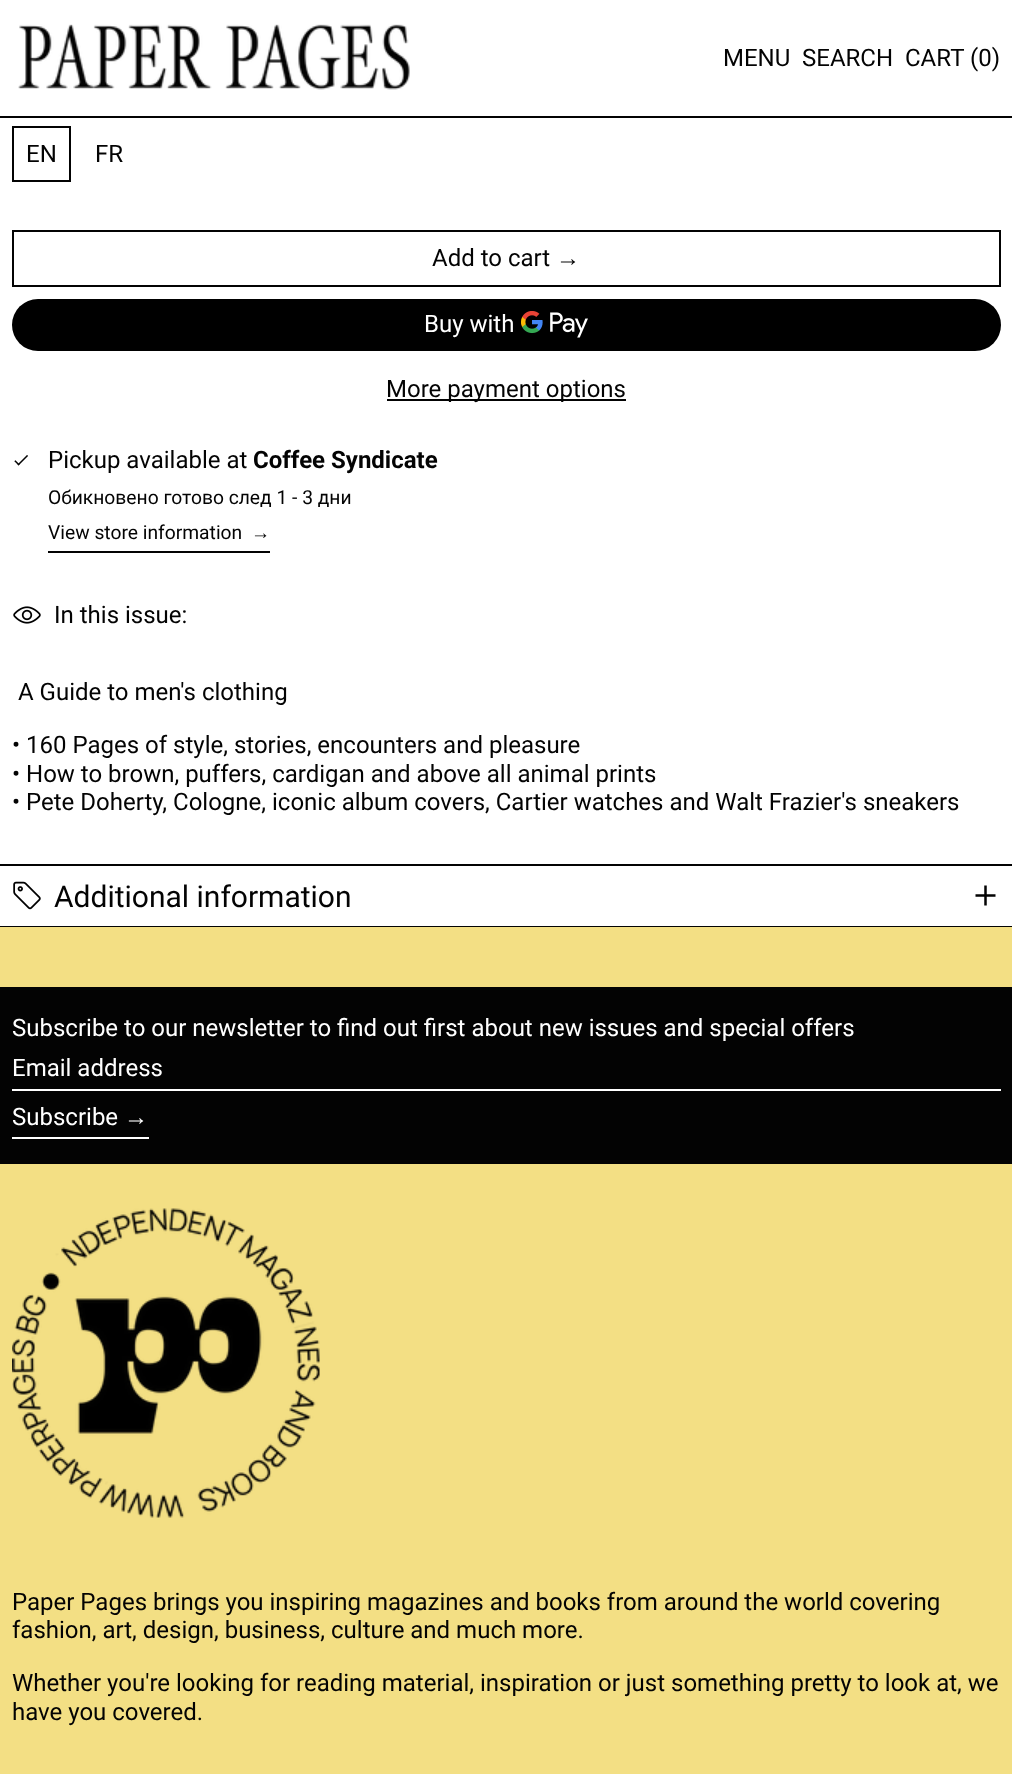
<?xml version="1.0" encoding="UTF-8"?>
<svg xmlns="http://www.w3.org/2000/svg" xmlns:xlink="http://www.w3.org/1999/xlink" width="1012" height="1774">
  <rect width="100%" height="100%" fill="#ffffff" />
  <rect y="116" width="1012" height="2" fill="#030303" />
  <image x="18" y="24" width="392" height="66" xlink:href="image1.png" />
  <rect x="13" y="127" width="57" height="54" fill="none" stroke="#030303" stroke-width="2" />
  <rect x="13" y="231" width="987" height="55" fill="none" stroke="#030303" stroke-width="2" />
  <rect x="12" y="299" width="989" height="52" rx="26" fill="#000000" />
  <image x="521" y="311" width="67" height="27" xlink:href="image2.png" />
  <rect x="387" y="399" width="239" height="2" fill="#030303" />
  <image x="14" y="455" width="14" height="11" xlink:href="image3.png" />
  <rect x="48" y="551" width="222" height="2" fill="#030303" />
  <image x="13" y="606" width="28" height="18" xlink:href="image4.png" />
  <rect y="864" width="1012" height="2" fill="#030303" />
  <image x="13" y="881" width="28" height="29" xlink:href="image5.png" />
  <image x="975" y="885" width="21" height="21" xlink:href="image6.png" />
  <rect y="926" width="1012" height="1" fill="#030303" />
  <rect y="927" width="1012" height="60" fill="#f3df84" />
  <rect y="987" width="1012" height="177" fill="#030303" />
  <rect x="12" y="1089" width="989" height="2" fill="#ffffff" />
  <rect x="12" y="1137" width="137" height="2" fill="#ffffff" />
  <rect y="1164" width="1012" height="399" fill="#f3df84" />
  <image x="12" y="1208" width="308" height="310" xlink:href="image7.png" />
  <rect y="1563" width="1012" height="211" fill="#f3df84" />
  <text x="723" y="66" style="font-family: Roboto; font-size: 24px; fill: #030303">MENU</text>
  <text x="802" y="66" style="font-family: Roboto; font-size: 24px; fill: #030303">SEARCH</text>
  <text x="905" y="66" style="font-family: Roboto; font-size: 24px; fill: #030303">CART (0)</text>
  <text x="26" y="162" style="font-family: Roboto; font-size: 24px; fill: #030303">EN</text>
  <text x="95" y="162" style="font-family: Roboto; font-size: 24px; fill: #030303">FR</text>
  <text x="432" y="266" style="font-family: Roboto; font-size: 24px; fill: #030303">Add to cart</text>
  <text x="556" y="266" style="font-family: Liberation Sans; font-size: 24px; fill: #030303">→</text>
  <text x="424" y="332" style="font-family: Roboto; font-size: 24px; fill: #ffffff">Buy with</text>
  <text x="386" y="397" style="font-family: Roboto; font-size: 24px; fill: #030303">More payment options</text>
  <text x="48" y="468" style="font-family: Roboto; font-size: 24px; fill: #030303">Pickup available at</text>
  <text x="253" y="468" style="font-family: Roboto; font-size: 24px; font-weight: bold; fill: #030303">Coffee Syndicate</text>
  <text x="48" y="504" style="font-family: Roboto; font-size: 19.25px; fill: #030303">Обикновено готово след 1 - 3 дни</text>
  <text x="48" y="539" style="font-family: Roboto; font-size: 19.25px; fill: #030303">View store information</text>
  <text x="251" y="539" style="font-family: Liberation Sans; font-size: 19.25px; fill: #030303">→</text>
  <text x="54" y="623" style="font-family: Roboto; font-size: 24px; fill: #030303">In this issue:</text>
  <text x="18" y="700" style="font-family: Roboto; font-size: 24px; fill: #030303">A Guide to men's clothing</text>
  <text x="12" y="753" style="font-family: Roboto; font-size: 24px; fill: #030303">• 160 Pages of style, stories, encounters and pleasure</text>
  <text x="12" y="782" style="font-family: Roboto; font-size: 24px; fill: #030303">• How to brown, puffers, cardigan and above all animal prints</text>
  <text x="12" y="810" style="font-family: Roboto; font-size: 24px; fill: #030303">• Pete Doherty, Cologne, iconic album covers, Cartier watches and Walt Frazier's sneakers</text>
  <text x="54" y="907" style="font-family: Roboto; font-size: 30px; fill: #030303">Additional information</text>
  <text x="12" y="1036" style="font-family: Roboto; font-size: 24px; fill: #ffffff">Subscribe to our newsletter to find out first about new issues and special offers</text>
  <text x="12" y="1076" style="font-family: Roboto; font-size: 24px; fill: #ffffff">Email address</text>
  <text x="12" y="1125" style="font-family: Roboto; font-size: 24px; fill: #ffffff">Subscribe</text>
  <text x="124" y="1125" style="font-family: Liberation Sans; font-size: 24px; fill: #ffffff">→</text>
  <text x="12" y="1610" style="font-family: Roboto; font-size: 24px; fill: #030303">Paper Pages brings you inspiring magazines and books from around the world covering</text>
  <text x="12" y="1638" style="font-family: Roboto; font-size: 24px; fill: #030303">fashion, art, design, business, culture and much more.</text>
  <text x="12" y="1691" style="font-family: Roboto; font-size: 24px; fill: #030303">Whether you're looking for reading material, inspiration or just something pretty to look at, we</text>
  <text x="12" y="1720" style="font-family: Roboto; font-size: 24px; fill: #030303">have you covered.</text>
</svg>
